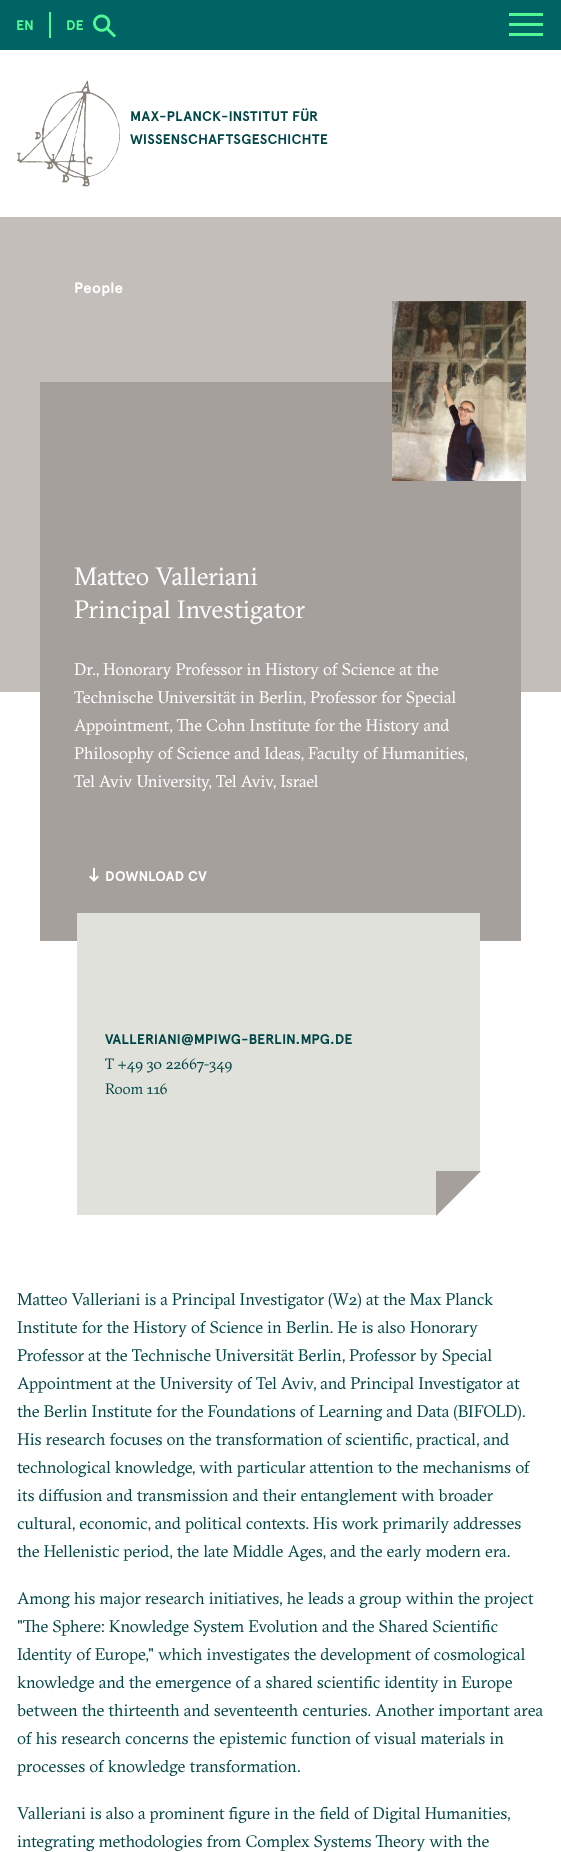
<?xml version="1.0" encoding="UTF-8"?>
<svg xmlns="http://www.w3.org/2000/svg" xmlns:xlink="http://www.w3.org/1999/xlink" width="561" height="1852">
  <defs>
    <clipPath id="clip1"><rect x="77" y="913" width="403" height="302" /></clipPath>
  </defs>
  <rect width="100%" height="100%" fill="#ffffff" />
  <rect width="561" height="50" fill="#006464" />
  <rect x="509" y="23" width="34" height="3" fill="#50fa96" />
  <rect x="509" y="13" width="34" height="3" fill="#50fa96" />
  <rect x="509" y="33" width="34" height="3" fill="#50fa96" />
  <rect x="49" y="12" width="2" height="26" fill="#50fa96" />
  <image x="93" y="14" width="23" height="24" xlink:href="image1.png" />
  <image x="17" y="80" width="103" height="107" xlink:href="image2.png" />
  <rect y="217" width="561" height="475" fill="#c3beb9" />
  <rect x="40" y="382" width="481" height="559" fill="#a5a09b" />
  <image x="89" y="867" width="10" height="15" xlink:href="image3.png" />
  <image x="392" y="301" width="134" height="180" xlink:href="image4.png" />
  <rect x="77" y="913" width="403" height="302" fill="#e1e1dc" />
  <g clip-path="url(#clip1)">
    <path d="M 481 1216 h -45 l 45 -45 z" fill="#ffffff" />
  </g>
  <path d="M 436 1216 v -45 h 45 z" fill="#a5a09b" />
  <text x="16" y="30" style="font-family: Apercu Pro; font-size: 14px; font-weight: bold; letter-spacing: 0.2px; fill: #50fa96">EN</text>
  <text x="66" y="30" style="font-family: Apercu Pro; font-size: 14px; font-weight: bold; letter-spacing: 0.2px; fill: #50fa96">DE</text>
  <text x="130" y="121" style="font-family: Apercu Pro; font-size: 14px; font-weight: bold; letter-spacing: 0.2px; fill: #004646">MAX-PLANCK-INSTITUT FÜR</text>
  <text x="130" y="144" style="font-family: Apercu Pro; font-size: 14px; font-weight: bold; letter-spacing: 0.2px; fill: #004646">WISSENSCHAFTSGESCHICHTE</text>
  <text x="74" y="293" style="font-family: Apercu Pro; font-size: 15px; font-weight: bold; letter-spacing: 0.2px; fill: #ffffff">People</text>
  <text x="74" y="585" style="font-family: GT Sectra; font-size: 25px; fill: #ffffff">Matteo Valleriani</text>
  <text x="74" y="618" style="font-family: GT Sectra; font-size: 25px; letter-spacing: 0.2px; fill: #ffffff">Principal Investigator</text>
  <text x="74" y="675" style="font-family: GT Sectra; font-size: 16.8px; fill: #ffffff">Dr., Honorary Professor in History of Science at the</text>
  <text x="74" y="703" style="font-family: GT Sectra; font-size: 16.8px; fill: #ffffff">Technische Universität in Berlin, Professor for Special</text>
  <text x="74" y="731" style="font-family: GT Sectra; font-size: 16.8px; fill: #ffffff">Appointment, The Cohn Institute for the History and</text>
  <text x="74" y="759" style="font-family: GT Sectra; font-size: 16.8px; fill: #ffffff">Philosophy of Science and Ideas, Faculty of Humanities,</text>
  <text x="74" y="787" style="font-family: GT Sectra; font-size: 16.8px; fill: #ffffff">Tel Aviv University, Tel Aviv, Israel</text>
  <text x="105" y="881" style="font-family: Apercu Pro; font-size: 14px; font-weight: bold; letter-spacing: 0.2px; fill: #ffffff">DOWNLOAD CV</text>
  <text x="105" y="1044" style="font-family: Apercu Pro; font-size: 14px; font-weight: bold; letter-spacing: 0.2px; fill: #004646">VALLERIANI@MPIWG-BERLIN.MPG.DE</text>
  <text x="105" y="1069" style="font-family: GT Sectra; font-size: 15px; fill: #004646">T +49 30 22667-349</text>
  <text x="105" y="1094" style="font-family: GT Sectra; font-size: 15px; fill: #004646">Room 116</text>
  <text x="17" y="1305" style="font-family: GT Sectra; font-size: 16.8px; fill: #004646">Matteo Valleriani is a Principal Investigator (W2) at the Max Planck</text>
  <text x="17" y="1333" style="font-family: GT Sectra; font-size: 16.8px; fill: #004646">Institute for the History of Science in Berlin. He is also Honorary</text>
  <text x="17" y="1361" style="font-family: GT Sectra; font-size: 16.8px; fill: #004646">Professor at the Technische Universität Berlin, Professor by Special</text>
  <text x="17" y="1389" style="font-family: GT Sectra; font-size: 16.8px; fill: #004646">Appointment at the University of Tel Aviv, and Principal Investigator at</text>
  <text x="17" y="1417" style="font-family: GT Sectra; font-size: 16.8px; fill: #004646">the Berlin Institute for the Foundations of Learning and Data (BIFOLD).</text>
  <text x="17" y="1445" style="font-family: GT Sectra; font-size: 16.8px; fill: #004646">His research focuses on the transformation of scientific, practical, and</text>
  <text x="17" y="1473" style="font-family: GT Sectra; font-size: 16.8px; fill: #004646">technological knowledge, with particular attention to the mechanisms of</text>
  <text x="17" y="1501" style="font-family: GT Sectra; font-size: 16.8px; fill: #004646">its diffusion and transmission and their entanglement with broader</text>
  <text x="17" y="1529" style="font-family: GT Sectra; font-size: 16.8px; fill: #004646">cultural, economic, and political contexts. His work primarily addresses</text>
  <text x="17" y="1557" style="font-family: GT Sectra; font-size: 16.8px; fill: #004646">the Hellenistic period, the late Middle Ages, and the early modern era.</text>
  <text x="17" y="1604" style="font-family: GT Sectra; font-size: 16.8px; fill: #004646">Among his major research initiatives, he leads a group within the project</text>
  <text x="17" y="1632" style="font-family: GT Sectra; font-size: 16.8px; fill: #004646">"The Sphere: Knowledge System Evolution and the Shared Scientific</text>
  <text x="17" y="1660" style="font-family: GT Sectra; font-size: 16.8px; fill: #004646">Identity of Europe," which investigates the development of cosmological</text>
  <text x="17" y="1688" style="font-family: GT Sectra; font-size: 16.8px; fill: #004646">knowledge and the emergence of a shared scientific identity in Europe</text>
  <text x="17" y="1716" style="font-family: GT Sectra; font-size: 16.8px; fill: #004646">between the thirteenth and seventeenth centuries. Another important area</text>
  <text x="17" y="1744" style="font-family: GT Sectra; font-size: 16.8px; fill: #004646">of his research concerns the epistemic function of visual materials in</text>
  <text x="17" y="1772" style="font-family: GT Sectra; font-size: 16.8px; fill: #004646">processes of knowledge transformation.</text>
  <text x="17" y="1819" style="font-family: GT Sectra; font-size: 16.8px; fill: #004646">Valleriani is also a prominent figure in the field of Digital Humanities,</text>
  <text x="17" y="1847" style="font-family: GT Sectra; font-size: 16.8px; fill: #004646">integrating methodologies from Complex Systems Theory with the</text>
</svg>
